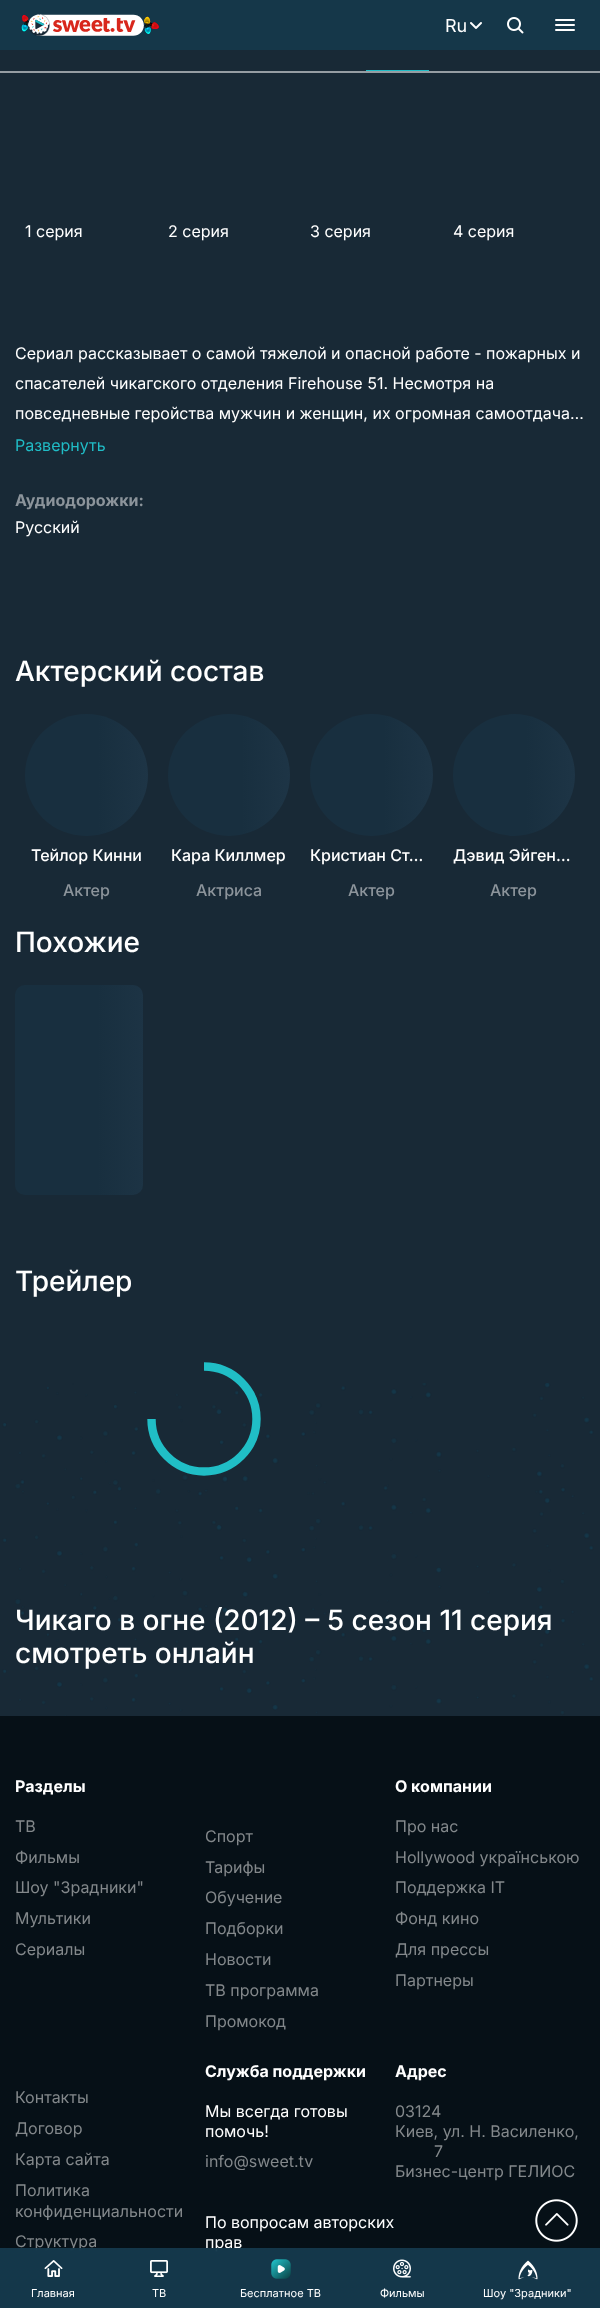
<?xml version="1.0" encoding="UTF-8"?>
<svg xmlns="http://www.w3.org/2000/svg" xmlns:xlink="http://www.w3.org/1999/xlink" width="600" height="2308">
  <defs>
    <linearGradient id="g1" gradientUnits="userSpaceOnUse" x1="25" y1="714" x2="343" y2="714"><stop offset="0.23" stop-color="#182f3f" /><stop offset="0.62" stop-color="#263d50" /><stop offset="1" stop-color="#182f3f" /></linearGradient>
    <linearGradient id="g2" gradientUnits="userSpaceOnUse" x1="168" y1="714" x2="486" y2="714"><stop offset="0.23" stop-color="#182f3f" /><stop offset="0.62" stop-color="#263d50" /><stop offset="1" stop-color="#182f3f" /></linearGradient>
    <linearGradient id="g3" gradientUnits="userSpaceOnUse" x1="310" y1="714" x2="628" y2="714"><stop offset="0.23" stop-color="#182f3f" /><stop offset="0.62" stop-color="#263d50" /><stop offset="1" stop-color="#182f3f" /></linearGradient>
    <linearGradient id="g4" gradientUnits="userSpaceOnUse" x1="453" y1="714" x2="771" y2="714"><stop offset="0.23" stop-color="#182f3f" /><stop offset="0.62" stop-color="#263d50" /><stop offset="1" stop-color="#182f3f" /></linearGradient>
    <linearGradient id="g5" gradientUnits="userSpaceOnUse" x1="15" y1="985" x2="373" y2="985"><stop offset="0.23" stop-color="#182f3f" /><stop offset="0.62" stop-color="#263d50" /><stop offset="1" stop-color="#182f3f" /></linearGradient>
  </defs>
  <rect width="100%" height="100%" fill="#182936" />
  <rect width="600" height="50" fill="#153749" />
  <image x="21" y="14" width="138" height="22" xlink:href="image1.png" />
  <image x="470" y="22" width="12" height="7" xlink:href="image2.png" />
  <image x="507" y="17" width="17" height="17" xlink:href="image3.png" />
  <path d="M 556 20 h 18 m -18 5 h 18 m -18 5 h 18" fill="none" stroke="#ffffff" stroke-width="2" stroke-linecap="round" />
  <rect y="71" width="600" height="2" fill="#959da3" />
  <rect x="366" y="70" width="63" height="1" fill="#20bcc6" />
  <rect x="25" y="714" width="123" height="122" rx="61" fill="url(#g1)" />
  <circle cx="229" cy="775" r="61" fill="url(#g2)" />
  <rect x="310" y="714" width="123" height="122" rx="61" fill="url(#g3)" />
  <circle cx="514" cy="775" r="61" fill="url(#g4)" />
  <rect x="15" y="985" width="128" height="210" rx="10" fill="url(#g5)" />
  <image x="2" y="1383" width="592" height="333" xlink:href="image4.png" />
  <path d="M 204 1366.5 c 29 0 52.5 23.5 52.5 52.5 c 0 29 -23.5 52.5 -52.5 52.5 c -29 0 -52.5 -23.5 -52.5 -52.5" fill="none" stroke="#20bec6" stroke-width="8.4" />
  <rect y="1716" width="600" height="592" fill="#061017" />
  <image x="535" y="2199" width="43" height="43" xlink:href="image5.png" />
  <text x="445" y="32" style="font-family: Inter; font-size: 18px; fill: #ffffff">Ru</text>
  <text x="25" y="237" style="font-family: Inter; font-size: 16px; fill: #ffffff">1 серия</text>
  <text x="168" y="237" style="font-family: Inter; font-size: 16px; fill: #ffffff">2 серия</text>
  <text x="310" y="237" style="font-family: Inter; font-size: 16px; fill: #ffffff">3 серия</text>
  <text x="453" y="237" style="font-family: Inter; font-size: 16px; fill: #ffffff">4 серия</text>
  <text x="15" y="359" style="font-family: Inter; font-size: 16px; fill: #ffffff">Сериал рассказывает о самой тяжелой и опасной работе - пожарных и</text>
  <text x="15" y="389" style="font-family: Inter; font-size: 16px; fill: #ffffff">спасателей чикагского отделения Firehouse 51. Несмотря на</text>
  <text x="15" y="419" style="font-family: Inter; font-size: 16px; fill: #ffffff">повседневные геройства мужчин и женщин, их огромная самоотдача…</text>
  <text x="15" y="451" style="font-family: Inter; font-size: 16px; fill: #20bcc6">Развернуть</text>
  <text x="15" y="506" style="font-family: Inter; font-size: 16px; font-weight: bold; fill: #8c949b">Аудиодорожки:</text>
  <text x="15" y="533" style="font-family: Inter; font-size: 16px; fill: #ffffff">Русский</text>
  <text x="15" y="681" style="font-family: Inter; font-size: 28px; font-weight: 500; fill: #ffffff">Актерский состав</text>
  <text x="31" y="861" style="font-family: Inter; font-size: 16px; font-weight: 500; fill: #ffffff">Тейлор Кинни</text>
  <text x="63" y="896" style="font-family: Inter; font-size: 16px; font-weight: 500; fill: #8c949b">Актер</text>
  <text x="171" y="861" style="font-family: Inter; font-size: 16px; font-weight: 500; fill: #ffffff">Кара Киллмер</text>
  <text x="196" y="896" style="font-family: Inter; font-size: 16px; font-weight: 500; fill: #8c949b">Актриса</text>
  <text x="310" y="861" style="font-family: Inter; font-size: 16px; font-weight: 500; fill: #ffffff">Кристиан Ст…</text>
  <text x="348" y="896" style="font-family: Inter; font-size: 16px; font-weight: 500; fill: #8c949b">Актер</text>
  <text x="453" y="861" style="font-family: Inter; font-size: 16px; font-weight: 500; fill: #ffffff">Дэвид Эйген…</text>
  <text x="490" y="896" style="font-family: Inter; font-size: 16px; font-weight: 500; fill: #8c949b">Актер</text>
  <text x="15" y="952" style="font-family: Inter; font-size: 28px; font-weight: 500; fill: #ffffff">Похожие</text>
  <text x="15" y="1291" style="font-family: Inter; font-size: 28px; font-weight: 500; fill: #ffffff">Трейлер</text>
  <text x="15" y="1630" style="font-family: Inter; font-size: 28px; font-weight: 500; fill: #ffffff">Чикаго в огне (2012) – 5 сезон 11 серия</text>
  <text x="15" y="1663" style="font-family: Inter; font-size: 28px; font-weight: 500; fill: #ffffff">смотреть онлайн</text>
  <text x="15" y="1792" style="font-family: Inter; font-size: 16px; font-weight: bold; fill: #ffffff">Разделы</text>
  <text x="15" y="1832" style="font-family: Inter; font-size: 16px; fill: #83888b">ТВ</text>
  <text x="15" y="1863" style="font-family: Inter; font-size: 16px; fill: #83888b">Фильмы</text>
  <text x="15" y="1893" style="font-family: Inter; font-size: 16px; fill: #83888b">Шоу "Зрадники"</text>
  <text x="15" y="1924" style="font-family: Inter; font-size: 16px; fill: #83888b">Мультики</text>
  <text x="15" y="1955" style="font-family: Inter; font-size: 16px; fill: #83888b">Сериалы</text>
  <text x="205" y="1842" style="font-family: Inter; font-size: 16px; fill: #83888b">Спорт</text>
  <text x="205" y="1873" style="font-family: Inter; font-size: 16px; fill: #83888b">Тарифы</text>
  <text x="205" y="1903" style="font-family: Inter; font-size: 16px; fill: #83888b">Обучение</text>
  <text x="205" y="1934" style="font-family: Inter; font-size: 16px; fill: #83888b">Подборки</text>
  <text x="205" y="1965" style="font-family: Inter; font-size: 16px; fill: #83888b">Новости</text>
  <text x="205" y="1996" style="font-family: Inter; font-size: 16px; fill: #83888b">ТВ программа</text>
  <text x="205" y="2027" style="font-family: Inter; font-size: 16px; fill: #83888b">Промокод</text>
  <text x="395" y="1792" style="font-family: Inter; font-size: 16px; font-weight: bold; fill: #ffffff">О компании</text>
  <text x="395" y="1832" style="font-family: Inter; font-size: 16px; fill: #83888b">Про нас</text>
  <text x="395" y="1863" style="font-family: Inter; font-size: 16px; fill: #83888b">Hollywood українською</text>
  <text x="395" y="1893" style="font-family: Inter; font-size: 16px; fill: #83888b">Поддержка IT</text>
  <text x="395" y="1924" style="font-family: Inter; font-size: 16px; fill: #83888b">Фонд кино</text>
  <text x="395" y="1955" style="font-family: Inter; font-size: 16px; fill: #83888b">Для прессы</text>
  <text x="395" y="1986" style="font-family: Inter; font-size: 16px; fill: #83888b">Партнеры</text>
  <text x="15" y="2103" style="font-family: Inter; font-size: 16px; fill: #83888b">Контакты</text>
  <text x="15" y="2134" style="font-family: Inter; font-size: 16px; fill: #83888b">Договор</text>
  <text x="15" y="2165" style="font-family: Inter; font-size: 16px; fill: #83888b">Карта сайта</text>
  <text x="15" y="2196" style="font-family: Inter; font-size: 16px; fill: #83888b">Политика</text>
  <text x="15" y="2217" style="font-family: Inter; font-size: 16px; fill: #83888b">конфиденциальности</text>
  <text x="15" y="2247" style="font-family: Inter; font-size: 16px; fill: #83888b">Структура</text>
  <text x="205" y="2077" style="font-family: Inter; font-size: 16px; font-weight: bold; fill: #ffffff">Служба поддержки</text>
  <text x="205" y="2117" style="font-family: Inter; font-size: 16px; fill: #ffffff">Мы всегда готовы</text>
  <text x="205" y="2137" style="font-family: Inter; font-size: 16px; fill: #ffffff">помочь!</text>
  <text x="205" y="2167" style="font-family: Inter; font-size: 16px; fill: #83888b">info@sweet.tv</text>
  <text x="205" y="2228" style="font-family: Inter; font-size: 16px; fill: #ffffff">По вопросам авторских</text>
  <text x="205" y="2248" style="font-family: Inter; font-size: 16px; fill: #ffffff">прав</text>
  <text x="395" y="2077" style="font-family: Inter; font-size: 16px; font-weight: bold; fill: #ffffff">Адрес</text>
  <text x="395" y="2117" style="font-family: Inter; font-size: 16px; fill: #83888b">03124</text>
  <text x="395" y="2137" style="font-family: Inter; font-size: 16px; fill: #83888b">Киев, ул. Н. Василенко,</text>
  <text x="434" y="2157" style="font-family: Inter; font-size: 16px; fill: #83888b">7</text>
  <text x="395" y="2177" style="font-family: Inter; font-size: 16px; fill: #83888b">Бизнес-центр ГЕЛИОС</text>
  <rect y="2248" width="600" height="60" fill="#15394c" fill-opacity="0.97" />
  <image x="44" y="2260" width="19" height="17" xlink:href="image6.png" />
  <text x="31" y="2297" style="font-family: Inter; font-size: 11px; fill: #ffffff">Главная</text>
  <image x="150" y="2260" width="18" height="17" xlink:href="image7.png" />
  <text x="152" y="2297" style="font-family: Inter; font-size: 11px; fill: #ffffff">ТВ</text>
  <image x="271" y="2259" width="20" height="20" xlink:href="image8.png" />
  <text x="240" y="2297" style="font-family: Inter; font-size: 11px; fill: #ffffff">Бесплатное ТВ</text>
  <image x="393" y="2259" width="18" height="19" xlink:href="image9.png" />
  <text x="380" y="2297" style="font-family: Inter; font-size: 11px; fill: #ffffff">Фильмы</text>
  <image x="518" y="2260" width="20" height="20" xlink:href="image10.png" />
  <text x="483" y="2297" style="font-family: Inter; font-size: 11px; fill: #ffffff">Шоу "Зрадники"</text>
</svg>
